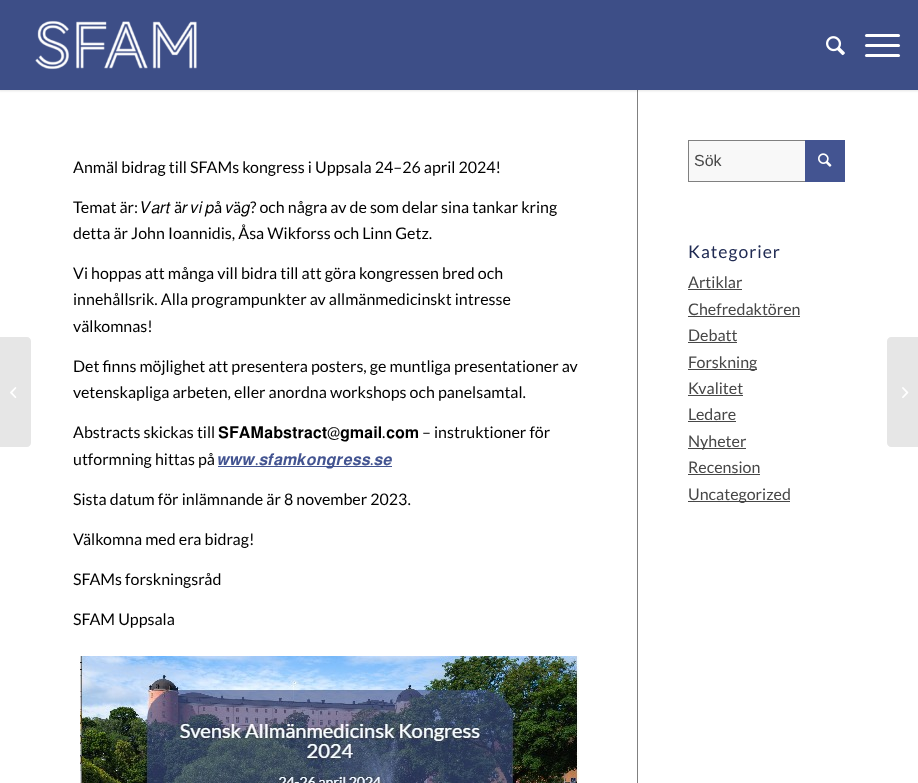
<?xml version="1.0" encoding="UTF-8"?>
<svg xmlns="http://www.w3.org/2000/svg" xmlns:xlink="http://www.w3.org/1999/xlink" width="918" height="783">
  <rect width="100%" height="100%" fill="#ffffff" />
  <rect x="637" y="90" width="1" height="693" fill="#808080" />
  <rect x="-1" y="-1" width="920" height="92" fill="#000000" fill-opacity="0.1" filter="blur(1px)" />
  <rect width="918" height="90" fill="#3d4e87" />
  <image x="35" y="20" width="162" height="50" xlink:href="image1.png" />
  <image x="826" y="36" width="19" height="20" xlink:href="image2.png" />
  <rect x="865" y="44" width="35" height="3" rx="1.5" fill="#ffffff" />
  <rect x="865" y="34" width="35" height="3" rx="1.5" fill="#ffffff" />
  <rect x="865" y="54" width="35" height="3" rx="1.5" fill="#ffffff" />
  <path d="M 0 337 h 27 c 2 0 4 2 4 4 v 102 c 0 2 -2 4 -4 4 h -27 z" fill="#e6e6e6" />
  <image x="10" y="387" width="7" height="11" xlink:href="image3.png" />
  <rect x="218" y="466" width="174" height="1" fill="#435491" />
  <image x="80" y="656" width="499" height="127" xlink:href="image4.png" />
  <rect x="689" y="141" width="116" height="40" fill="#f8f8f8" />
  <rect x="688.5" y="140.5" width="156" height="41" fill="none" stroke="#808080" />
  <rect x="805" y="140" width="40" height="42" fill="#435491" />
  <image x="818" y="153" width="14" height="14" xlink:href="image5.png" />
  <rect x="688" y="289" width="54" height="1" fill="#474747" />
  <rect x="688" y="316" width="112" height="1" fill="#474747" />
  <rect x="688" y="342" width="49" height="1" fill="#474747" />
  <rect x="688" y="369" width="69" height="1" fill="#474747" />
  <rect x="688" y="395" width="55" height="1" fill="#474747" />
  <rect x="688" y="421" width="48" height="1" fill="#474747" />
  <rect x="688" y="448" width="58" height="1" fill="#474747" />
  <rect x="688" y="474" width="72" height="1" fill="#474747" />
  <rect x="688" y="501" width="102" height="1" fill="#474747" />
  <path d="M 891 337 h 27 v 110 h -27 c -2 0 -4 -2 -4 -4 v -102 c 0 -2 2 -4 4 -4 z" fill="#e6e6e6" />
  <image x="902" y="387" width="7" height="11" xlink:href="image6.png" />
  <text x="73" y="173" style="font-family: Lato; font-size: 16px; fill: #000000">Anmäl bidrag till SFAMs kongress i Uppsala 24–26 april 2024!</text>
  <text x="73" y="213" style="font-family: Lato; font-size: 16px; fill: #000000">Temat är:</text>
  <text x="141" y="213" style="font-family: FreeSans; font-size: 16px; fill: #000000">𝑉𝑎𝑟𝑡</text>
  <text x="174" y="213" style="font-family: Lato; font-size: 16px; fill: #000000">ä</text>
  <text x="182" y="213" style="font-family: FreeSans; font-size: 16px; fill: #000000">𝑟</text>
  <text x="191" y="213" style="font-family: FreeSans; font-size: 16px; fill: #000000">𝑣𝑖</text>
  <text x="205" y="213" style="font-family: FreeSans; font-size: 16px; fill: #000000">𝑝</text>
  <text x="214" y="213" style="font-family: Lato; font-size: 16px; fill: #000000">å</text>
  <text x="226" y="213" style="font-family: FreeSans; font-size: 16px; fill: #000000">𝑣</text>
  <text x="233" y="213" style="font-family: Lato; font-size: 16px; fill: #000000">ä</text>
  <text x="241" y="213" style="font-family: FreeSans; font-size: 16px; fill: #000000">𝑔</text>
  <text x="250" y="213" style="font-family: Lato; font-size: 16px; fill: #000000">? och några av de som delar sina tankar kring</text>
  <text x="73" y="239" style="font-family: Lato; font-size: 16px; fill: #000000">detta är John Ioannidis, Åsa Wikforss och Linn Getz.</text>
  <text x="73" y="279" style="font-family: Lato; font-size: 16px; fill: #000000">Vi hoppas att många vill bidra till att göra kongressen bred och</text>
  <text x="73" y="305" style="font-family: Lato; font-size: 16px; fill: #000000">innehållsrik. Alla programpunkter av allmänmedicinskt intresse</text>
  <text x="73" y="332" style="font-family: Lato; font-size: 16px; fill: #000000">välkomnas!</text>
  <text x="73" y="372" style="font-family: Lato; font-size: 16px; fill: #000000">Det finns möjlighet att presentera posters, ge muntliga presentationer av</text>
  <text x="73" y="398" style="font-family: Lato; font-size: 16px; fill: #000000">vetenskapliga arbeten, eller anordna workshops och panelsamtal.</text>
  <text x="73" y="438" style="font-family: Lato; font-size: 16px; fill: #000000">Abstracts skickas till</text>
  <text x="218" y="438" style="font-family: FreeSans; font-size: 16px; fill: #000000">𝐒𝐅𝐀𝐌𝐚𝐛𝐬𝐭𝐫𝐚𝐜𝐭</text>
  <text x="327" y="438" style="font-family: Lato; font-size: 16px; fill: #000000">@</text>
  <text x="340" y="438" style="font-family: FreeSans; font-size: 16px; fill: #000000">𝐠𝐦𝐚𝐢𝐥</text>
  <text x="382" y="438" style="font-family: Lato; font-size: 16px; fill: #000000">.</text>
  <text x="386" y="438" style="font-family: FreeSans; font-size: 16px; fill: #000000">𝐜𝐨𝐦</text>
  <text x="422" y="438" style="font-family: Lato; font-size: 16px; fill: #000000">– instruktioner för</text>
  <text x="73" y="465" style="font-family: Lato; font-size: 16px; fill: #000000">utformning hittas på</text>
  <text x="218" y="465" style="font-family: FreeSans; font-size: 16px; fill: #435491">𝒘𝒘𝒘</text>
  <text x="255" y="465" style="font-family: Lato; font-size: 16px; fill: #435491">.</text>
  <text x="259" y="465" style="font-family: FreeSans; font-size: 16px; fill: #435491">𝒔𝒇𝒂𝒎𝒌𝒐𝒏𝒈𝒓𝒆𝒔𝒔</text>
  <text x="370" y="465" style="font-family: Lato; font-size: 16px; fill: #435491">.</text>
  <text x="374" y="465" style="font-family: FreeSans; font-size: 16px; fill: #435491">𝒔𝒆</text>
  <text x="73" y="505" style="font-family: Lato; font-size: 16px; fill: #000000">Sista datum för inlämnande är 8 november 2023.</text>
  <text x="73" y="545" style="font-family: Lato; font-size: 16px; fill: #000000">Välkomna med era bidrag!</text>
  <text x="73" y="585" style="font-family: Lato; font-size: 16px; fill: #000000">SFAMs forskningsråd</text>
  <text x="73" y="625" style="font-family: Lato; font-size: 16px; fill: #000000">SFAM Uppsala</text>
  <text x="694" y="166" style="font-family: Liberation Sans; font-size: 16px; fill: #474747">Sök</text>
  <text x="688" y="258" style="font-family: Lato; font-size: 17.5px; letter-spacing: 1px; fill: #202b53">Kategorier</text>
  <text x="688" y="288" style="font-family: Lato; font-size: 16px; fill: #474747">Artiklar</text>
  <text x="688" y="315" style="font-family: Lato; font-size: 16px; fill: #474747">Chefredaktören</text>
  <text x="688" y="341" style="font-family: Lato; font-size: 16px; fill: #474747">Debatt</text>
  <text x="688" y="368" style="font-family: Lato; font-size: 16px; fill: #474747">Forskning</text>
  <text x="688" y="394" style="font-family: Lato; font-size: 16px; fill: #474747">Kvalitet</text>
  <text x="688" y="420" style="font-family: Lato; font-size: 16px; fill: #474747">Ledare</text>
  <text x="688" y="447" style="font-family: Lato; font-size: 16px; fill: #474747">Nyheter</text>
  <text x="688" y="473" style="font-family: Lato; font-size: 16px; fill: #474747">Recension</text>
  <text x="688" y="500" style="font-family: Lato; font-size: 16px; fill: #474747">Uncategorized</text>
</svg>
